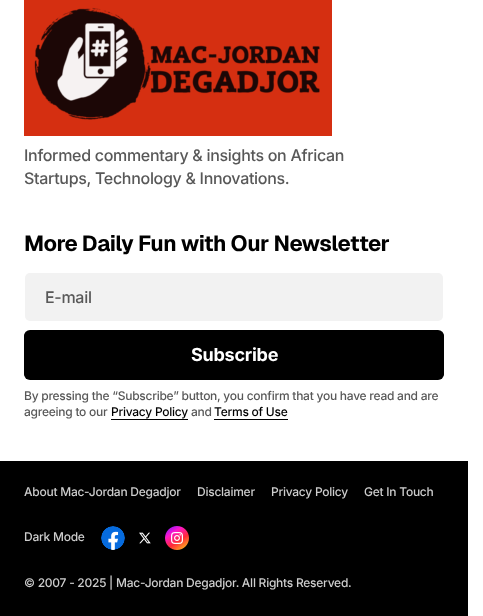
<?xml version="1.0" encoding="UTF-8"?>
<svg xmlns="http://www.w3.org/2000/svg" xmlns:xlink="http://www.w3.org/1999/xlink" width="483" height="616">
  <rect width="100%" height="100%" fill="#ffffff" />
  <image x="24" y="0" width="308" height="136" xlink:href="image1.png" />
  <rect x="25" y="273" width="418" height="48" rx="5" fill="#f2f2f2" />
  <rect x="24" y="330" width="420" height="50" rx="6" fill="#000000" />
  <rect x="24" y="331" width="420" height="48" rx="6" fill="#000000" />
  <rect x="111" y="419" width="77" height="1" fill="#000000" />
  <rect x="214" y="419" width="74" height="1" fill="#000000" />
  <rect y="461" width="468" height="155" fill="#000000" />
  <image x="101" y="526" width="24" height="24" xlink:href="image2.png" />
  <image x="139" y="532" width="12" height="12" xlink:href="image3.png" />
  <image x="165" y="526" width="24" height="24" xlink:href="image4.png" />
  <text x="24" y="161" style="font-family: Inter; font-size: 16px; font-weight: 500; letter-spacing: -0.3px; fill: #585858">Informed commentary &amp; insights on African</text>
  <text x="24" y="184" style="font-family: Inter; font-size: 16px; font-weight: 500; letter-spacing: -0.3px; fill: #585858">Startups, Technology &amp; Innovations.</text>
  <text x="24" y="251" style="font-family: Geist; font-size: 22px; font-weight: bold; letter-spacing: -0.45px; fill: #000000">More Daily Fun with Our Newsletter</text>
  <text x="45" y="303" style="font-family: Inter; font-size: 16px; font-weight: 500; letter-spacing: -0.3px; fill: #585858">E-mail</text>
  <text x="191" y="361" style="font-family: Inter; font-size: 18px; font-weight: bold; letter-spacing: -0.25px; fill: #ffffff">Subscribe</text>
  <text x="24" y="400" style="font-family: Inter; font-size: 12px; font-weight: 500; letter-spacing: -0.25px; fill: #585858">By pressing the “Subscribe” button, you confirm that you have read and are</text>
  <text x="24" y="416" style="font-family: Inter; font-size: 12px; font-weight: 500; letter-spacing: -0.25px; fill: #585858">agreeing to our</text>
  <text x="111" y="416" style="font-family: Inter; font-size: 12px; font-weight: 500; letter-spacing: -0.25px; fill: #000000">Privacy Policy</text>
  <text x="191" y="416" style="font-family: Inter; font-size: 12px; font-weight: 500; letter-spacing: -0.25px; fill: #585858">and</text>
  <text x="214" y="416" style="font-family: Inter; font-size: 12px; font-weight: 500; letter-spacing: -0.25px; fill: #000000">Terms of Use</text>
  <text x="24" y="496" style="font-family: Inter; font-size: 12px; font-weight: 500; letter-spacing: -0.25px; fill: #cdcdcd">About Mac-Jordan Degadjor</text>
  <text x="197" y="496" style="font-family: Inter; font-size: 12px; font-weight: 500; letter-spacing: -0.25px; fill: #cdcdcd">Disclaimer</text>
  <text x="271" y="496" style="font-family: Inter; font-size: 12px; font-weight: 500; letter-spacing: -0.25px; fill: #cdcdcd">Privacy Policy</text>
  <text x="364" y="496" style="font-family: Inter; font-size: 12px; font-weight: 500; letter-spacing: -0.25px; fill: #cdcdcd">Get In Touch</text>
  <text x="24" y="541" style="font-family: Inter; font-size: 12px; font-weight: 500; letter-spacing: -0.25px; fill: #cdcdcd">Dark Mode</text>
  <text x="24" y="587" style="font-family: Inter; font-size: 12px; font-weight: 500; letter-spacing: -0.25px; fill: #cdcdcd">© 2007 - 2025 | Mac-Jordan Degadjor. All Rights Reserved.</text>
</svg>
